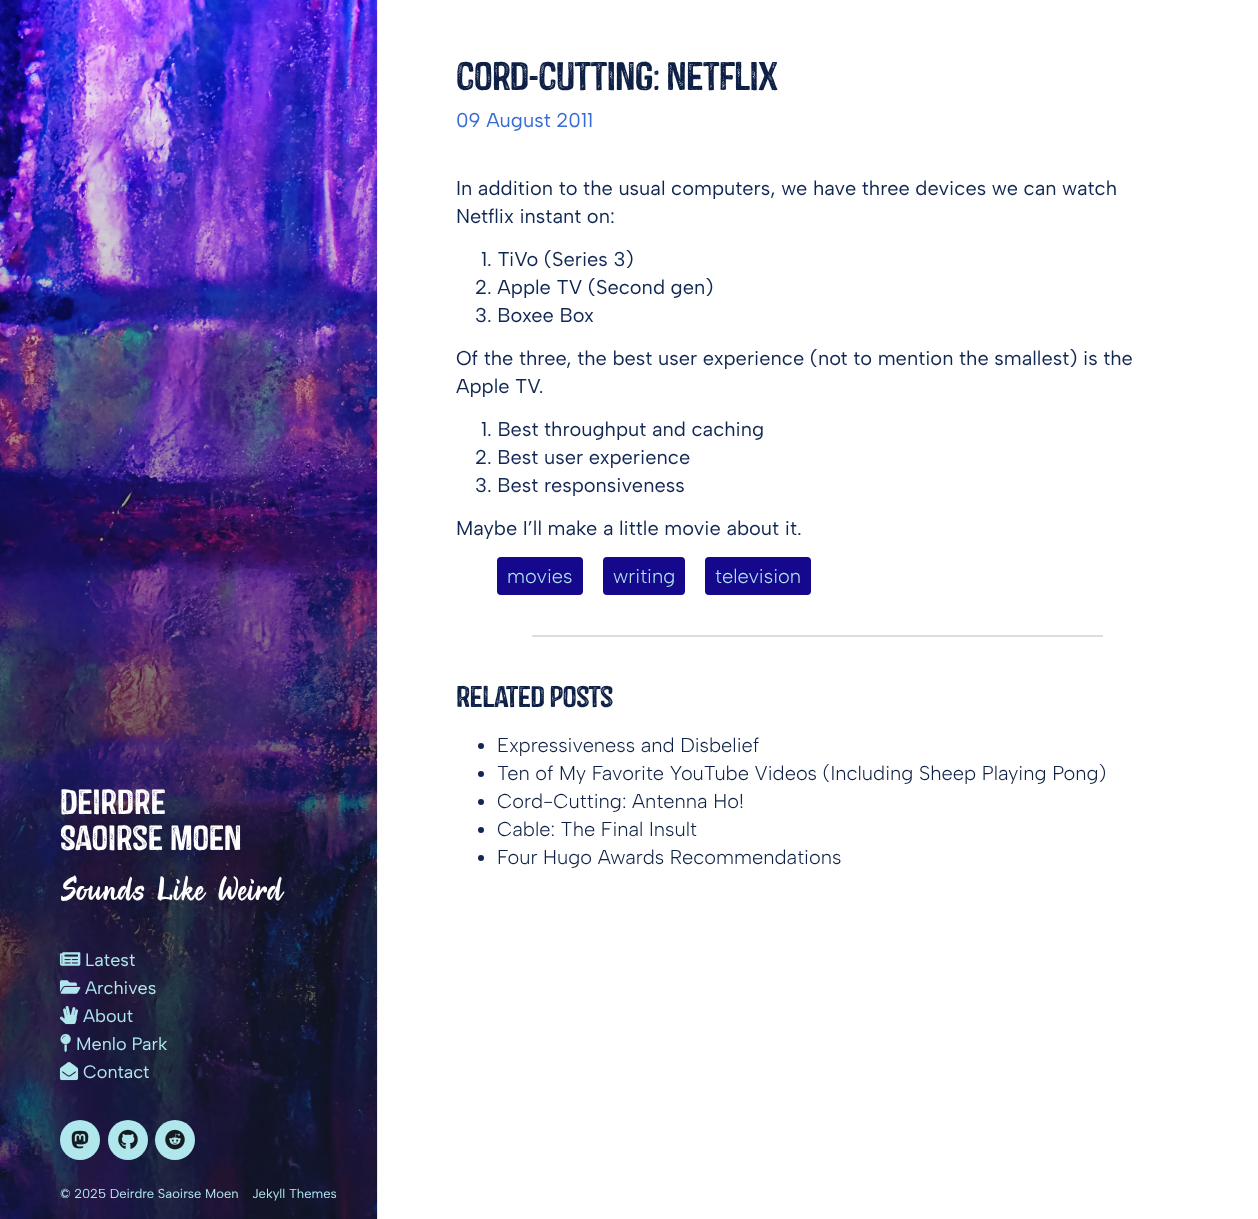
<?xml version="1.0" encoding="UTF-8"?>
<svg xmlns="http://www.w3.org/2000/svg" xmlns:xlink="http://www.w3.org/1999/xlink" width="1258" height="1219">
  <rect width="100%" height="100%" fill="#ffffff" />
  <rect x="497" y="557" width="86" height="38" rx="4" fill="#15088c" />
  <rect x="603" y="557" width="82" height="38" rx="4" fill="#15088c" />
  <rect x="705" y="557" width="106" height="38" rx="4" fill="#15088c" />
  <rect x="532" y="635" width="571" height="2" fill="#dddddd" />
  <circle cx="481" cy="746" r="3" fill="#112753" />
  <circle cx="481" cy="774" r="3" fill="#112753" />
  <circle cx="481" cy="802" r="3" fill="#112753" />
  <circle cx="481" cy="830" r="3" fill="#112753" />
  <circle cx="481" cy="858" r="3" fill="#112753" />
  <image x="0" y="0" width="378" height="1219" xlink:href="image1.png" />
  <image x="59" y="952" width="22" height="14" xlink:href="image2.png" />
  <image x="59" y="980" width="22" height="14" xlink:href="image3.png" />
  <image x="60" y="1006" width="18" height="19" xlink:href="image4.png" />
  <image x="60" y="1033" width="11" height="19" xlink:href="image5.png" />
  <image x="59" y="1062" width="20" height="19" xlink:href="image6.png" />
  <circle cx="80" cy="1140" r="20" fill="#b0e7ed" />
  <image x="71" y="1130" width="18" height="19" xlink:href="image7.png" />
  <circle cx="128" cy="1140" r="20" fill="#b0e7ed" />
  <image x="118" y="1129" width="20" height="20" xlink:href="image8.png" />
  <circle cx="175" cy="1140" r="20" fill="#b0e7ed" />
  <image x="165" y="1129" width="20" height="21" xlink:href="image9.png" />
  <text x="456" y="90" style="font-family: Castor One; font-size: 40px; letter-spacing: -0.8px; fill: #0e2045">Cord-Cutting: Netflix</text>
  <text x="456" y="127" style="font-family: Albert Sans; font-size: 20px; fill: #376bd6">09 August 2011</text>
  <text x="456" y="195" style="font-family: Albert Sans; font-size: 20px; fill: #112753">In addition to the usual computers, we have three devices we can watch</text>
  <text x="456" y="223" style="font-family: Albert Sans; font-size: 20px; fill: #112753">Netflix instant on:</text>
  <text x="481" y="266" style="font-family: Albert Sans; font-size: 20px; fill: #112753">1. TiVo (Series 3)</text>
  <text x="475" y="294" style="font-family: Albert Sans; font-size: 20px; fill: #112753">2. Apple TV (Second gen)</text>
  <text x="475" y="322" style="font-family: Albert Sans; font-size: 20px; fill: #112753">3. Boxee Box</text>
  <text x="456" y="365" style="font-family: Albert Sans; font-size: 20px; fill: #112753">Of the three, the best user experience (not to mention the smallest) is the</text>
  <text x="456" y="393" style="font-family: Albert Sans; font-size: 20px; fill: #112753">Apple TV.</text>
  <text x="481" y="436" style="font-family: Albert Sans; font-size: 20px; fill: #112753">1. Best throughput and caching</text>
  <text x="475" y="464" style="font-family: Albert Sans; font-size: 20px; fill: #112753">2. Best user experience</text>
  <text x="475" y="492" style="font-family: Albert Sans; font-size: 20px; fill: #112753">3. Best responsiveness</text>
  <text x="456" y="535" style="font-family: Albert Sans; font-size: 20px; fill: #112753">Maybe I’ll make a little movie about it.</text>
  <text x="507" y="583" style="font-family: Albert Sans; font-size: 20px; font-weight: 300; fill: #b0e7ed">movies</text>
  <text x="613" y="583" style="font-family: Albert Sans; font-size: 20px; font-weight: 300; fill: #b0e7ed">writing</text>
  <text x="715" y="583" style="font-family: Albert Sans; font-size: 20px; font-weight: 300; fill: #b0e7ed">television</text>
  <text x="456" y="707" style="font-family: Castor One; font-size: 30px; letter-spacing: -0.6px; fill: #0e2045">Related Posts</text>
  <text x="497" y="752" style="font-family: Albert Sans; font-size: 20px; font-weight: 300; fill: #0e2045">Expressiveness and Disbelief</text>
  <text x="497" y="780" style="font-family: Albert Sans; font-size: 20px; font-weight: 300; fill: #0e2045">Ten of My Favorite YouTube Videos (Including Sheep Playing Pong)</text>
  <text x="497" y="808" style="font-family: Albert Sans; font-size: 20px; font-weight: 300; fill: #0e2045">Cord-Cutting: Antenna Ho!</text>
  <text x="497" y="836" style="font-family: Albert Sans; font-size: 20px; font-weight: 300; fill: #0e2045">Cable: The Final Insult</text>
  <text x="497" y="864" style="font-family: Albert Sans; font-size: 20px; font-weight: 300; fill: #0e2045">Four Hugo Awards Recommendations</text>
  <text x="60" y="814" style="font-family: Castor One; font-size: 35px; fill: #ffffff">Deirdre</text>
  <text x="60" y="850" style="font-family: Castor One; font-size: 35px; fill: #ffffff">Saoirse Moen</text>
  <text x="60" y="900" style="font-family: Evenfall; font-size: 32px; font-style: italic; fill: #ffffff">Sounds Like Weird</text>
  <text x="85" y="966" style="font-family: Albert Sans; font-size: 18px; fill: #b0e7ed">Latest</text>
  <text x="85" y="994" style="font-family: Albert Sans; font-size: 18px; fill: #b0e7ed">Archives</text>
  <text x="83" y="1022" style="font-family: Albert Sans; font-size: 18px; fill: #b0e7ed">About</text>
  <text x="76" y="1050" style="font-family: Albert Sans; font-size: 18px; fill: #b0e7ed">Menlo Park</text>
  <text x="83" y="1078" style="font-family: Albert Sans; font-size: 18px; fill: #b0e7ed">Contact</text>
  <text x="60" y="1198" style="font-family: Albert Sans; font-size: 13px; fill: #b0e7ed">© 2025 Deirdre Saoirse Moen</text>
  <text x="252" y="1198" style="font-family: Albert Sans; font-size: 13px; fill: #b0e7ed">Jekyll Themes</text>
</svg>
